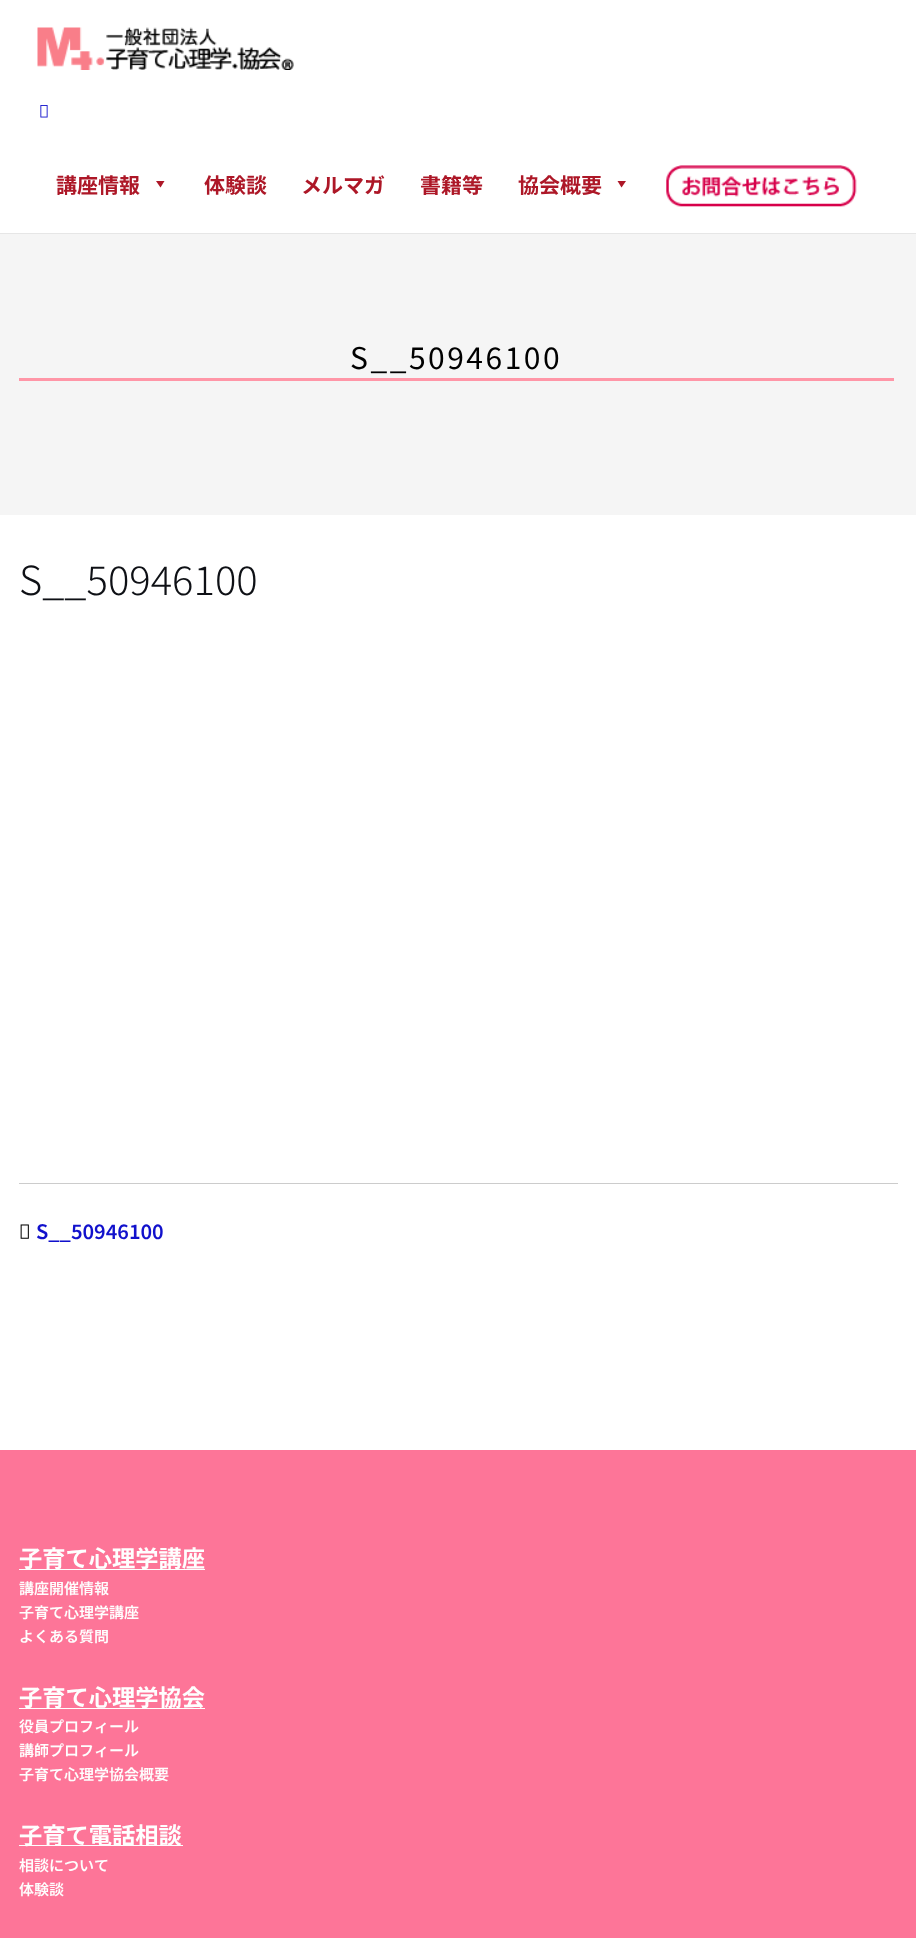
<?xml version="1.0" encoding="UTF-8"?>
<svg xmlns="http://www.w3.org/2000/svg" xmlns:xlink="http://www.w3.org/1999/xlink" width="916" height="1938">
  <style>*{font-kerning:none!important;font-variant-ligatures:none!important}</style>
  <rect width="100%" height="100%" fill="#ffffff" />
  <rect y="233" width="916" height="1" fill="#e6e6e6" />
  <image x="37" y="27" width="257" height="43" xlink:href="image1.png" />
  <image x="40" y="105" width="8" height="13" xlink:href="image2.png" />
  <path d="M 164.5 181 l -4 6.5 l -4.5 -6.5 z" fill="#ad1727" />
  <path d="M 626 181 l -4.5 6.5 l -4 -6.5 z" fill="#ad1727" />
  <image x="666" y="165" width="191" height="42" xlink:href="image3.png" />
  <rect y="234" width="916" height="281" fill="#f5f5f5" />
  <rect x="19" y="378" width="875" height="3" fill="#ff96a7" />
  <rect x="19" y="1183" width="879" height="1" fill="#cccccc" />
  <image x="20" y="1224" width="9" height="15" xlink:href="image4.png" />
  <rect y="1450" width="916" height="488" fill="#fd7598" />
  <rect x="19" y="1569" width="186" height="1" fill="#fefefe" />
  <rect x="19" y="1708" width="186" height="1" fill="#fefefe" />
  <rect x="19" y="1845" width="164" height="1" fill="#fefefe" />
  <text x="56" y="193" style="font-family: Noto Sans JP; font-size: 21px; font-weight: bold; fill: #ad1727">講座情報</text>
  <text x="204" y="193" style="font-family: Noto Sans JP; font-size: 21px; font-weight: bold; fill: #ad1727">体験談</text>
  <text x="301" y="193" style="font-family: Noto Sans JP; font-size: 21px; font-weight: bold; fill: #ad1727">メルマガ</text>
  <text x="420" y="193" style="font-family: Noto Sans JP; font-size: 21px; font-weight: bold; fill: #ad1727">書籍等</text>
  <text x="518" y="193" style="font-family: Noto Sans JP; font-size: 21px; font-weight: bold; fill: #ad1727">協会概要</text>
  <text x="350" y="369" style="font-family: Noto Sans JP; font-size: 30px; letter-spacing: 2.5px; fill: #000000">S__50946100</text>
  <text x="19" y="595" style="font-family: Noto Sans JP; font-size: 40px; font-weight: 300; fill: #0e1015">S__50946100</text>
  <text x="36" y="1239" style="font-family: Noto Sans JP; font-size: 20px; font-weight: 600; fill: #1111cc">S__50946100</text>
  <text x="19" y="1567" style="font-family: Noto Sans JP; font-size: 23.25px; font-weight: bold; fill: #fefefe">子育て心理学講座</text>
  <text x="19" y="1594" style="font-family: Noto Sans JP; font-size: 15px; font-weight: 600; fill: #fefefe">講座開催情報</text>
  <text x="19" y="1618" style="font-family: Noto Sans JP; font-size: 15px; font-weight: 600; fill: #fefefe">子育て心理学講座</text>
  <text x="19" y="1642" style="font-family: Noto Sans JP; font-size: 15px; font-weight: 600; fill: #fefefe">よくある質問</text>
  <text x="19" y="1706" style="font-family: Noto Sans JP; font-size: 23.25px; font-weight: bold; fill: #fefefe">子育て心理学協会</text>
  <text x="19" y="1732" style="font-family: Noto Sans JP; font-size: 15px; font-weight: 600; fill: #fefefe">役員プロフィール</text>
  <text x="19" y="1756" style="font-family: Noto Sans JP; font-size: 15px; font-weight: 600; fill: #fefefe">講師プロフィール</text>
  <text x="19" y="1780" style="font-family: Noto Sans JP; font-size: 15px; font-weight: 600; fill: #fefefe">子育て心理学協会概要</text>
  <text x="19" y="1844" style="font-family: Noto Sans JP; font-size: 23.25px; font-weight: bold; fill: #fefefe">子育て電話相談</text>
  <text x="19" y="1871" style="font-family: Noto Sans JP; font-size: 15px; font-weight: 600; fill: #fefefe">相談について</text>
  <text x="19" y="1895" style="font-family: Noto Sans JP; font-size: 15px; font-weight: 600; fill: #fefefe">体験談</text>
</svg>
